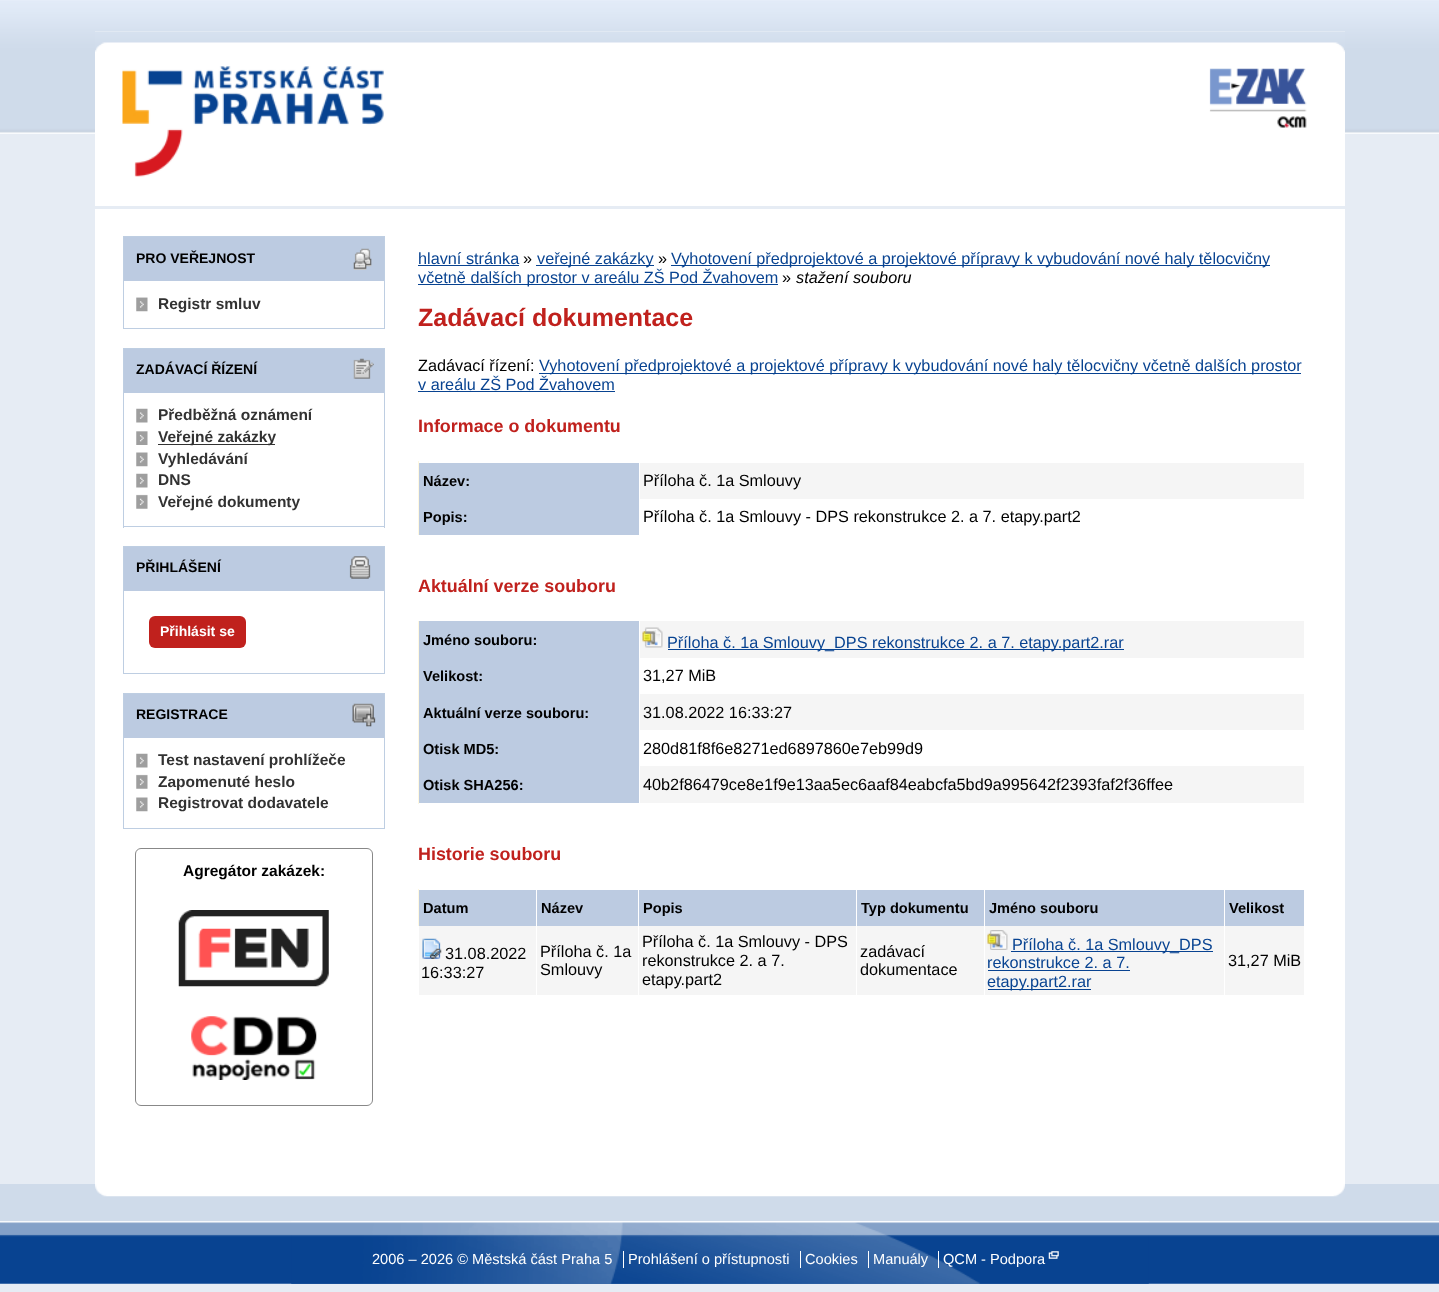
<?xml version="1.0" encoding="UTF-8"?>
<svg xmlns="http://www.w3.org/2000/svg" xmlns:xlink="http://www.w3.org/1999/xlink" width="1439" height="1292">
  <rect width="100%" height="100%" fill="#e6ecf4" />
  <image x="0" y="0" width="1439" height="134" xlink:href="image1.png" />
  <rect x="95" y="31" width="1250" height="175" fill="#ffffff" />
  <image x="95" y="31" width="1250" height="21" xlink:href="image2.png" />
  <image x="122" y="66" width="262" height="111" xlink:href="image3.png" />
  <image x="1209" y="68" width="98" height="60" xlink:href="image4.png" />
  <rect x="95" y="209" width="1250" height="975" fill="#ffffff" />
  <rect x="124" y="237" width="260" height="44" fill="#bccbe1" />
  <image x="353" y="248" width="19" height="22" xlink:href="image5.png" />
  <rect x="123" y="236" width="262" height="1" fill="#becee2" />
  <rect x="384" y="236" width="1" height="93" fill="#becee2" />
  <rect x="123" y="236" width="1" height="45" fill="#becee2" />
  <rect x="123" y="328" width="262" height="1" fill="#becee2" />
  <rect x="123" y="281" width="1" height="48" fill="#becee2" />
  <image x="136" y="297" width="12" height="15" xlink:href="image6.png" />
  <rect x="124" y="349" width="260" height="44" fill="#bccbe1" />
  <image x="353" y="358" width="21" height="21" xlink:href="image7.png" />
  <rect x="123" y="348" width="262" height="1" fill="#becee2" />
  <rect x="384" y="348" width="1" height="180" fill="#becee2" />
  <rect x="123" y="348" width="1" height="45" fill="#becee2" />
  <rect x="123" y="526" width="262" height="1" fill="#becee2" />
  <rect x="123" y="393" width="1" height="135" fill="#becee2" />
  <image x="136" y="408" width="12" height="15" xlink:href="image8.png" />
  <image x="136" y="431" width="12" height="14" xlink:href="image9.png" />
  <rect x="158" y="444" width="117" height="1" fill="#323232" />
  <image x="136" y="452" width="12" height="15" xlink:href="image10.png" />
  <image x="136" y="473" width="12" height="15" xlink:href="image8.png" />
  <image x="136" y="494" width="12" height="15" xlink:href="image11.png" />
  <rect x="124" y="547" width="260" height="44" fill="#bccbe1" />
  <image x="349" y="556" width="22" height="23" xlink:href="image12.png" />
  <rect x="123" y="546" width="262" height="1" fill="#becee2" />
  <rect x="384" y="546" width="1" height="128" fill="#becee2" />
  <rect x="123" y="546" width="1" height="45" fill="#becee2" />
  <rect x="123" y="673" width="262" height="1" fill="#becee2" />
  <rect x="123" y="591" width="1" height="83" fill="#becee2" />
  <rect x="149" y="616" width="97" height="32" rx="6" fill="#c0211d" />
  <rect x="124" y="694" width="260" height="44" fill="#bccbe1" />
  <image x="352" y="703" width="24" height="24" xlink:href="image13.png" />
  <rect x="123" y="693" width="262" height="1" fill="#becee2" />
  <rect x="384" y="693" width="1" height="136" fill="#becee2" />
  <rect x="123" y="693" width="1" height="45" fill="#becee2" />
  <rect x="123" y="828" width="262" height="1" fill="#becee2" />
  <rect x="123" y="738" width="1" height="91" fill="#becee2" />
  <image x="136" y="753" width="12" height="15" xlink:href="image8.png" />
  <image x="136" y="774" width="12" height="15" xlink:href="image11.png" />
  <image x="136" y="797" width="12" height="15" xlink:href="image10.png" />
  <rect x="135.5" y="848.5" width="237" height="257" rx="5.5" fill="none" stroke="#888888" />
  <image x="178" y="910" width="151" height="77" xlink:href="image14.png" />
  <image x="191" y="1016" width="126" height="64" xlink:href="image15.png" />
  <rect x="418" y="265" width="101" height="1" fill="#084391" />
  <rect x="536" y="265" width="118" height="1" fill="#084391" />
  <rect x="671" y="265" width="599" height="1" fill="#084391" />
  <rect x="418" y="284" width="360" height="1" fill="#084391" />
  <rect x="539" y="373" width="762" height="1" fill="#084391" />
  <rect x="418" y="391" width="197" height="1" fill="#084391" />
  <rect x="640" y="463" width="664" height="36" fill="#f5f5f5" />
  <rect x="419" y="463" width="220" height="72" fill="#bccbe1" />
  <rect x="418" y="461" width="1" height="74" fill="#fff8df" />
  <rect x="640" y="621" width="664" height="37" fill="#f5f5f5" />
  <rect x="419" y="621" width="220" height="182" fill="#bccbe1" />
  <image x="642" y="627" width="21" height="21" xlink:href="image16.png" />
  <rect x="668" y="649" width="456" height="1" fill="#084391" />
  <rect x="640" y="694" width="664" height="36" fill="#f5f5f5" />
  <rect x="640" y="766" width="664" height="37" fill="#f5f5f5" />
  <rect x="418" y="621" width="1" height="183" fill="#fff8df" />
  <rect x="419" y="890" width="117" height="36" fill="#bccbe1" />
  <rect x="418" y="889" width="1" height="37" fill="#fff8df" />
  <rect x="537" y="890" width="101" height="36" fill="#bccbe1" />
  <rect x="639" y="890" width="217" height="36" fill="#bccbe1" />
  <rect x="857" y="890" width="127" height="36" fill="#bccbe1" />
  <rect x="985" y="890" width="239" height="36" fill="#bccbe1" />
  <rect x="1225" y="890" width="79" height="36" fill="#bccbe1" />
  <rect x="419" y="926" width="885" height="69" fill="#f5f5f5" />
  <rect x="536" y="925" width="1" height="70" fill="#ffffff" />
  <image x="422" y="938" width="20" height="21" xlink:href="image17.png" />
  <rect x="638" y="925" width="1" height="70" fill="#ffffff" />
  <rect x="856" y="925" width="1" height="70" fill="#ffffff" />
  <rect x="984" y="925" width="1" height="70" fill="#ffffff" />
  <rect x="1224" y="925" width="1" height="70" fill="#ffffff" />
  <image x="987" y="930" width="21" height="20" xlink:href="image18.png" />
  <rect x="1011" y="951" width="202" height="1" fill="#084391" />
  <rect x="988" y="970" width="142" height="1" fill="#084391" />
  <rect x="988" y="989" width="103" height="1" fill="#084391" />
  <rect y="1184" width="1439" height="37" fill="#cfdbea" />
  <image x="95" y="1184" width="1250" height="13" xlink:href="image19.png" />
  <image x="0" y="1221" width="1439" height="63" xlink:href="image20.png" />
  <image x="291" y="1221" width="858" height="63" xlink:href="image21.png" />
  <rect x="623" y="1251" width="1" height="17" fill="#ffffff" />
  <rect x="800" y="1251" width="1" height="17" fill="#ffffff" />
  <rect x="868" y="1251" width="1" height="17" fill="#ffffff" />
  <rect x="938" y="1251" width="1" height="17" fill="#ffffff" />
  <image x="1048" y="1251" width="11" height="8" xlink:href="image22.png" />
  <text x="136" y="263" style="font-family: Liberation Sans; font-size: 14px; font-weight: bold; fill: #000000">PRO VEŘEJNOST</text>
  <text x="158" y="309" style="font-family: Liberation Sans; font-size: 15.5px; font-weight: bold; fill: #323232">Registr smluv</text>
  <text x="136" y="374" style="font-family: Liberation Sans; font-size: 14px; font-weight: bold; fill: #000000">ZADÁVACÍ ŘÍZENÍ</text>
  <text x="158" y="420" style="font-family: Liberation Sans; font-size: 15.5px; font-weight: bold; fill: #323232">Předběžná oznámení</text>
  <text x="158" y="442" style="font-family: Liberation Sans; font-size: 15.5px; font-weight: bold; fill: #323232">Veřejné zakázky</text>
  <text x="158" y="464" style="font-family: Liberation Sans; font-size: 15.5px; font-weight: bold; fill: #323232">Vyhledávání</text>
  <text x="158" y="485" style="font-family: Liberation Sans; font-size: 15.5px; font-weight: bold; fill: #323232">DNS</text>
  <text x="158" y="507" style="font-family: Liberation Sans; font-size: 15.5px; font-weight: bold; fill: #323232">Veřejné dokumenty</text>
  <text x="136" y="572" style="font-family: Liberation Sans; font-size: 14px; font-weight: bold; fill: #000000">PŘIHLÁŠENÍ</text>
  <text x="160" y="636" style="font-family: Liberation Sans; font-size: 14px; font-weight: bold; fill: #ffffff">Přihlásit se</text>
  <text x="136" y="719" style="font-family: Liberation Sans; font-size: 14px; font-weight: bold; fill: #000000">REGISTRACE</text>
  <text x="158" y="765" style="font-family: Liberation Sans; font-size: 15.5px; font-weight: bold; fill: #323232">Test nastavení prohlížeče</text>
  <text x="158" y="787" style="font-family: Liberation Sans; font-size: 15.5px; font-weight: bold; fill: #323232">Zapomenuté heslo</text>
  <text x="158" y="808" style="font-family: Liberation Sans; font-size: 15.5px; font-weight: bold; fill: #323232">Registrovat dodavatele</text>
  <text x="183" y="876" style="font-family: Liberation Sans; font-size: 15.5px; font-weight: bold; fill: #000000">Agregátor zakázek:</text>
  <text x="418" y="264" style="font-family: Liberation Sans; font-size: 16.25px; fill: #084391">hlavní stránka</text>
  <text x="523" y="264" style="font-family: Liberation Sans; font-size: 16.25px; fill: #000000">»</text>
  <text x="537" y="264" style="font-family: Liberation Sans; font-size: 16.25px; fill: #084391">veřejné zakázky</text>
  <text x="658" y="264" style="font-family: Liberation Sans; font-size: 16.25px; fill: #000000">»</text>
  <text x="671" y="264" style="font-family: Liberation Sans; font-size: 16.25px; fill: #084391">Vyhotovení předprojektové a projektové přípravy k vybudování nové haly tělocvičny</text>
  <text x="418" y="283" style="font-family: Liberation Sans; font-size: 16.25px; fill: #084391">včetně dalších prostor v areálu ZŠ Pod Žvahovem</text>
  <text x="782" y="283" style="font-family: Liberation Sans; font-size: 16.25px; fill: #000000">»</text>
  <text x="796" y="283" style="font-family: Liberation Sans; font-size: 16.25px; font-style: italic; fill: #000000">stažení souboru</text>
  <text x="418" y="326" style="font-family: Liberation Sans; font-size: 25px; font-weight: bold; fill: #c0211d">Zadávací dokumentace</text>
  <text x="418" y="371" style="font-family: Liberation Sans; font-size: 16.25px; fill: #000000">Zadávací řízení:</text>
  <text x="539" y="371" style="font-family: Liberation Sans; font-size: 16.25px; fill: #084391">Vyhotovení předprojektové a projektové přípravy k vybudování nové haly tělocvičny včetně dalších prostor</text>
  <text x="418" y="390" style="font-family: Liberation Sans; font-size: 16.25px; fill: #084391">v areálu ZŠ Pod Žvahovem</text>
  <text x="418" y="432" style="font-family: Liberation Sans; font-size: 17.9px; font-weight: bold; fill: #c0211d">Informace o dokumentu</text>
  <text x="423" y="486" style="font-family: Liberation Sans; font-size: 14.6px; font-weight: bold; fill: #000000">Název:</text>
  <text x="643" y="486" style="font-family: Liberation Sans; font-size: 16.25px; fill: #000000">Příloha č. 1a Smlouvy</text>
  <text x="423" y="522" style="font-family: Liberation Sans; font-size: 14.6px; font-weight: bold; fill: #000000">Popis:</text>
  <text x="643" y="522" style="font-family: Liberation Sans; font-size: 16.25px; fill: #000000">Příloha č. 1a Smlouvy - DPS rekonstrukce 2. a 7. etapy.part2</text>
  <text x="418" y="592" style="font-family: Liberation Sans; font-size: 17.9px; font-weight: bold; fill: #c0211d">Aktuální verze souboru</text>
  <text x="423" y="645" style="font-family: Liberation Sans; font-size: 14.6px; font-weight: bold; fill: #000000">Jméno souboru:</text>
  <text x="667" y="648" style="font-family: Liberation Sans; font-size: 16.25px; fill: #084391">Příloha č. 1a Smlouvy_DPS rekonstrukce 2. a 7. etapy.part2.rar</text>
  <text x="423" y="681" style="font-family: Liberation Sans; font-size: 14.6px; font-weight: bold; fill: #000000">Velikost:</text>
  <text x="643" y="681" style="font-family: Liberation Sans; font-size: 16.25px; fill: #000000">31,27 MiB</text>
  <text x="423" y="718" style="font-family: Liberation Sans; font-size: 14.6px; font-weight: bold; fill: #000000">Aktuální verze souboru:</text>
  <text x="643" y="718" style="font-family: Liberation Sans; font-size: 16.25px; fill: #000000">31.08.2022 16:33:27</text>
  <text x="423" y="754" style="font-family: Liberation Sans; font-size: 14.6px; font-weight: bold; fill: #000000">Otisk MD5:</text>
  <text x="643" y="754" style="font-family: Liberation Sans; font-size: 16.25px; fill: #000000">280d81f8f6e8271ed6897860e7eb99d9</text>
  <text x="423" y="790" style="font-family: Liberation Sans; font-size: 14.6px; font-weight: bold; fill: #000000">Otisk SHA256:</text>
  <text x="643" y="790" style="font-family: Liberation Sans; font-size: 16.25px; fill: #000000">40b2f86479ce8e1f9e13aa5ec6aaf84eabcfa5bd9a995642f2393faf2f36ffee</text>
  <text x="418" y="860" style="font-family: Liberation Sans; font-size: 17.9px; font-weight: bold; fill: #c0211d">Historie souboru</text>
  <text x="423" y="913" style="font-family: Liberation Sans; font-size: 14.6px; font-weight: bold; fill: #000000">Datum</text>
  <text x="541" y="913" style="font-family: Liberation Sans; font-size: 14.6px; font-weight: bold; fill: #000000">Název</text>
  <text x="643" y="913" style="font-family: Liberation Sans; font-size: 14.6px; font-weight: bold; fill: #000000">Popis</text>
  <text x="861" y="913" style="font-family: Liberation Sans; font-size: 14.6px; font-weight: bold; fill: #000000">Typ dokumentu</text>
  <text x="989" y="913" style="font-family: Liberation Sans; font-size: 14.6px; font-weight: bold; fill: #000000">Jméno souboru</text>
  <text x="1229" y="913" style="font-family: Liberation Sans; font-size: 14.6px; font-weight: bold; fill: #000000">Velikost</text>
  <text x="445" y="959" style="font-family: Liberation Sans; font-size: 16.25px; fill: #000000">31.08.2022</text>
  <text x="421" y="978" style="font-family: Liberation Sans; font-size: 16.25px; fill: #000000">16:33:27</text>
  <text x="540" y="957" style="font-family: Liberation Sans; font-size: 16.25px; fill: #000000">Příloha č. 1a</text>
  <text x="540" y="975" style="font-family: Liberation Sans; font-size: 16.25px; fill: #000000">Smlouvy</text>
  <text x="642" y="947" style="font-family: Liberation Sans; font-size: 16.25px; fill: #000000">Příloha č. 1a Smlouvy - DPS</text>
  <text x="642" y="966" style="font-family: Liberation Sans; font-size: 16.25px; fill: #000000">rekonstrukce 2. a 7.</text>
  <text x="642" y="985" style="font-family: Liberation Sans; font-size: 16.25px; fill: #000000">etapy.part2</text>
  <text x="860" y="957" style="font-family: Liberation Sans; font-size: 16.25px; fill: #000000">zadávací</text>
  <text x="860" y="975" style="font-family: Liberation Sans; font-size: 16.25px; fill: #000000">dokumentace</text>
  <text x="1012" y="950" style="font-family: Liberation Sans; font-size: 16.25px; fill: #084391">Příloha č. 1a Smlouvy_DPS</text>
  <text x="987" y="968" style="font-family: Liberation Sans; font-size: 16.25px; fill: #084391">rekonstrukce 2. a 7.</text>
  <text x="987" y="987" style="font-family: Liberation Sans; font-size: 16.25px; fill: #084391">etapy.part2.rar</text>
  <text x="1228" y="966" style="font-family: Liberation Sans; font-size: 16.25px; fill: #000000">31,27 MiB</text>
  <text x="372" y="1264" style="font-family: Liberation Sans; font-size: 14.6px; fill: #ffffff">2006 – 2026 © Městská část Praha 5</text>
  <text x="628" y="1264" style="font-family: Liberation Sans; font-size: 14.6px; fill: #ffffff">Prohlášení o přístupnosti</text>
  <text x="805" y="1264" style="font-family: Liberation Sans; font-size: 14.6px; fill: #ffffff">Cookies</text>
  <text x="873" y="1264" style="font-family: Liberation Sans; font-size: 14.6px; fill: #ffffff">Manuály</text>
  <text x="943" y="1264" style="font-family: Liberation Sans; font-size: 14.6px; fill: #ffffff">QCM - Podpora</text>
</svg>
